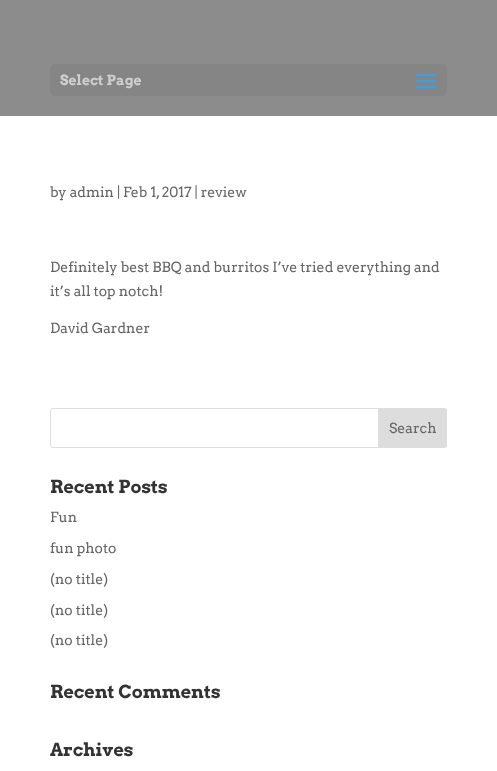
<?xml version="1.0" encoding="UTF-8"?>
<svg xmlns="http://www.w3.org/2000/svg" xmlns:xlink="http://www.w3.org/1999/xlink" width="497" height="771">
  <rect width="100%" height="100%" fill="#ffffff" />
  <rect width="497" height="116" fill="#8c8c8c" />
  <rect x="50" y="64" width="397" height="32" rx="5" fill="#858585" />
  <image x="416" y="74" width="20" height="14" xlink:href="image1.png" />
  <rect x="50.5" y="408.5" width="396" height="39" rx="2.5" fill="none" stroke="#dddddd" />
  <path d="M 378.5 408.5 h 65.5 c 1.5 0 2.5 1 2.5 2.5 v 34 c 0 1.5 -1 2.5 -2.5 2.5 h -65.5 z" fill="#dddddd" stroke="#dddddd" />
  <text x="60" y="85" style="font-family: Arvo; font-size: 14px; font-weight: bold; fill: #cecece">Select Page</text>
  <text x="50" y="197" style="font-family: Arvo; font-size: 14px; fill: #666666">by admin | Feb 1, 2017 | review</text>
  <text x="50" y="272" style="font-family: Arvo; font-size: 14px; fill: #666666">Definitely best BBQ and burritos I’ve tried everything and</text>
  <text x="50" y="296" style="font-family: Arvo; font-size: 14px; fill: #666666">it’s all top notch!</text>
  <text x="50" y="333" style="font-family: Arvo; font-size: 14px; fill: #666666">David Gardner</text>
  <text x="389" y="433" style="font-family: Arvo; font-size: 14px; fill: #666666">Search</text>
  <text x="50" y="493" style="font-family: Arvo; font-size: 18px; font-weight: bold; fill: #333333">Recent Posts</text>
  <text x="50" y="522" style="font-family: Arvo; font-size: 14px; fill: #666666">Fun</text>
  <text x="50" y="553" style="font-family: Arvo; font-size: 14px; fill: #666666">fun photo</text>
  <text x="50" y="584" style="font-family: Arvo; font-size: 14px; fill: #666666">(no title)</text>
  <text x="50" y="615" style="font-family: Arvo; font-size: 14px; fill: #666666">(no title)</text>
  <text x="50" y="645" style="font-family: Arvo; font-size: 14px; fill: #666666">(no title)</text>
  <text x="50" y="698" style="font-family: Arvo; font-size: 18px; font-weight: bold; fill: #333333">Recent Comments</text>
  <text x="50" y="756" style="font-family: Arvo; font-size: 18px; font-weight: bold; fill: #333333">Archives</text>
</svg>
